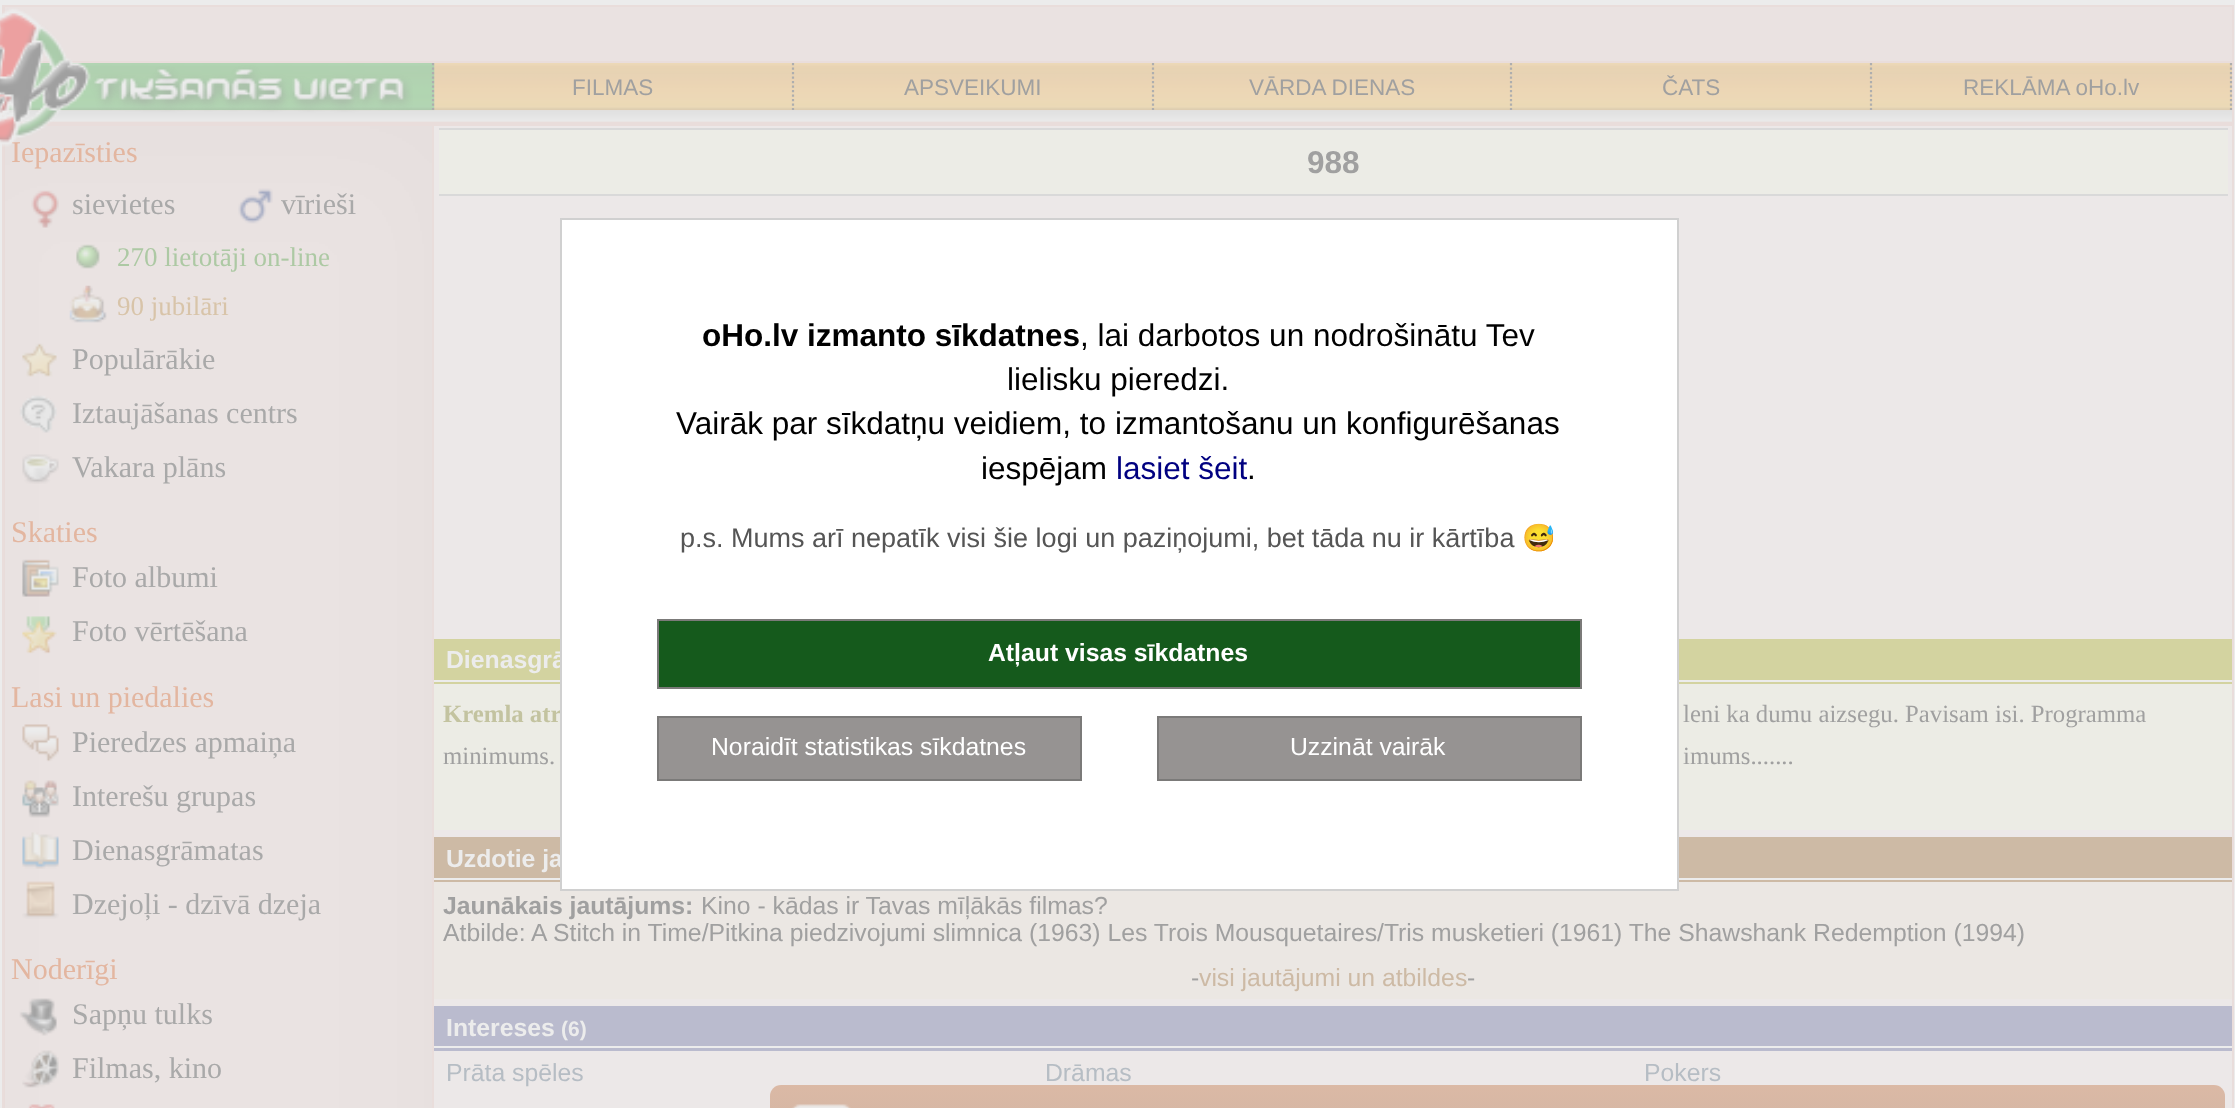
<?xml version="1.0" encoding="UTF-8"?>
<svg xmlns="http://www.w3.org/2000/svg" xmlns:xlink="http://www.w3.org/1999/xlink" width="2235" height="1108">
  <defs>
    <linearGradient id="g1" gradientUnits="userSpaceOnUse" x1="1497" y1="1084" x2="1497" y2="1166"><stop offset="0" stop-color="#dbb9a5" /><stop offset="1" stop-color="#ceb3a3" /></linearGradient>
  </defs>
  <rect width="100%" height="100%" fill="#ececec" />
  <rect x="2" y="5" width="2232" height="1103" fill="#e9dddb" />
  <rect x="5" y="7" width="2227" height="54" fill="#eae2e1" />
  <rect x="8" y="110" width="2224" height="12" fill="#eae2e1" />
  <image x="8" y="63" width="2224" height="48" xlink:href="image2.png" />
  <image x="8" y="63" width="427" height="48" xlink:href="image3.png" />
  <path d="M 433 63 v 47" fill="none" stroke="#aeaeae" stroke-width="2.2" stroke-dasharray="2.25 2.25" />
  <path d="M 793 63 v 47" fill="none" stroke="#aeaeae" stroke-width="2.2" stroke-dasharray="2.25 2.25" />
  <path d="M 1153 63 v 47" fill="none" stroke="#aeaeae" stroke-width="2.2" stroke-dasharray="2.25 2.25" />
  <path d="M 1511 63 v 47" fill="none" stroke="#aeaeae" stroke-width="2.2" stroke-dasharray="2.25 2.25" />
  <path d="M 1871 63 v 47" fill="none" stroke="#aeaeae" stroke-width="2.2" stroke-dasharray="2.25 2.25" />
  <path d="M 2231 63 v 47" fill="none" stroke="#aeaeae" stroke-width="2.2" stroke-dasharray="2.25 2.25" />
  <image x="4" y="110" width="2228" height="12" xlink:href="image4.png" />
  <rect x="5" y="126" width="427" height="982" fill="#eae2e1" />
  <image x="4" y="126" width="428" height="982" xlink:href="image5.png" />
  <image x="31" y="190" width="28" height="38" xlink:href="image6.png" />
  <image x="238" y="188" width="35" height="36" xlink:href="image7.png" />
  <image x="76" y="244" width="24" height="25" xlink:href="image8.png" />
  <image x="69" y="285" width="38" height="38" xlink:href="image9.png" />
  <image x="22" y="343" width="35" height="34" xlink:href="image10.png" />
  <image x="19" y="395" width="38" height="38" xlink:href="image11.png" />
  <image x="22" y="454" width="37" height="30" xlink:href="image12.png" />
  <image x="22" y="559" width="37" height="38" xlink:href="image13.png" />
  <image x="22" y="616" width="35" height="38" xlink:href="image14.png" />
  <image x="22" y="724" width="37" height="38" xlink:href="image15.png" />
  <image x="22" y="780" width="37" height="38" xlink:href="image16.png" />
  <image x="22" y="832" width="37" height="37" xlink:href="image17.png" />
  <image x="22" y="881" width="37" height="38" xlink:href="image18.png" />
  <image x="19" y="998" width="38" height="38" xlink:href="image19.png" />
  <image x="22" y="1050" width="37" height="38" xlink:href="image20.png" />
  <image x="28" y="1104" width="27" height="4" xlink:href="image21.png" />
  <rect x="434" y="126" width="1798" height="982" fill="#ece8e8" />
  <rect x="439" y="130" width="1789" height="64" fill="#ecece6" />
  <rect x="439" y="128" width="1789" height="2" fill="#d9d9d9" />
  <rect x="439" y="194" width="1789" height="2" fill="#d9d9d9" />
  <rect x="434" y="639" width="1798" height="45" fill="#d3d3a0" />
  <rect x="434" y="680" width="1798" height="2" fill="#ececec" />
  <rect x="434" y="684" width="1798" height="146" fill="#ecece5" />
  <rect x="434" y="837" width="1798" height="45" fill="#cdbaa5" />
  <rect x="434" y="878" width="1798" height="2" fill="#ececec" />
  <rect x="434" y="882" width="1798" height="117" fill="#ebe7e3" />
  <rect x="434" y="1006" width="1798" height="45" fill="#babbce" />
  <rect x="434" y="1046" width="1798" height="2" fill="#ececec" />
  <rect x="770" y="1085" width="1455" height="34" rx="11" fill="url(#g1)" />
  <image x="791" y="1104" width="60" height="4" xlink:href="image22.png" />
  <text x="572" y="95" style="font-family: Liberation Sans; font-size: 22.5px; fill: #a0a0a0">FILMAS</text>
  <text x="904" y="95" style="font-family: Liberation Sans; font-size: 22.5px; fill: #a0a0a0">APSVEIKUMI</text>
  <text x="1249" y="95" style="font-family: Liberation Sans; font-size: 22.5px; fill: #a0a0a0">VĀRDA DIENAS</text>
  <text x="1662" y="95" style="font-family: Liberation Sans; font-size: 22.5px; fill: #a0a0a0">ČATS</text>
  <text x="1963" y="95" style="font-family: Liberation Sans; font-size: 22.5px; fill: #a0a0a0">REKLĀMA oHo.lv</text>
  <text x="11" y="162" style="font-family: Liberation Serif; font-size: 30px; fill: #e3b6a0">Iepazīsties</text>
  <image x="0" y="8" width="413" height="139" xlink:href="image1.png" />
  <text x="72" y="214" style="font-family: Liberation Serif; font-size: 30px; fill: #a9a9a9">sievietes</text>
  <text x="281" y="214" style="font-family: Liberation Serif; font-size: 30px; fill: #a9a9a9">vīrieši</text>
  <text x="117" y="266" style="font-family: Liberation Serif; font-size: 27px; fill: #adc9a4">270 lietotāji on-line</text>
  <text x="117" y="315" style="font-family: Liberation Serif; font-size: 27px; fill: #d8c4a9">90 jubilāri</text>
  <text x="72" y="369" style="font-family: Liberation Serif; font-size: 30px; fill: #a9a9a9">Populārākie</text>
  <text x="72" y="423" style="font-family: Liberation Serif; font-size: 30px; fill: #a9a9a9">Iztaujāšanas centrs</text>
  <text x="72" y="477" style="font-family: Liberation Serif; font-size: 30px; fill: #a9a9a9">Vakara plāns</text>
  <text x="11" y="542" style="font-family: Liberation Serif; font-size: 30px; fill: #e3b6a0">Skaties</text>
  <text x="72" y="587" style="font-family: Liberation Serif; font-size: 30px; fill: #a9a9a9">Foto albumi</text>
  <text x="72" y="641" style="font-family: Liberation Serif; font-size: 30px; fill: #a9a9a9">Foto vērtēšana</text>
  <text x="11" y="707" style="font-family: Liberation Serif; font-size: 30px; fill: #e3b6a0">Lasi un piedalies</text>
  <text x="72" y="752" style="font-family: Liberation Serif; font-size: 30px; fill: #a9a9a9">Pieredzes apmaiņa</text>
  <text x="72" y="806" style="font-family: Liberation Serif; font-size: 30px; fill: #a9a9a9">Interešu grupas</text>
  <text x="72" y="860" style="font-family: Liberation Serif; font-size: 30px; fill: #a9a9a9">Dienasgrāmatas</text>
  <text x="72" y="914" style="font-family: Liberation Serif; font-size: 30px; fill: #a9a9a9">Dzejoļi - dzīvā dzeja</text>
  <text x="11" y="979" style="font-family: Liberation Serif; font-size: 30px; fill: #e3b6a0">Noderīgi</text>
  <text x="72" y="1024" style="font-family: Liberation Serif; font-size: 30px; fill: #a9a9a9">Sapņu tulks</text>
  <text x="72" y="1078" style="font-family: Liberation Serif; font-size: 30px; fill: #a9a9a9">Filmas, kino</text>
  <text x="1307" y="173" style="font-family: Liberation Sans; font-size: 31.5px; font-weight: bold; fill: #a0a0a0">988</text>
  <text x="446" y="668" style="font-family: Liberation Sans; font-size: 24.75px; font-weight: bold; fill: #ececec">Dienasgrā</text>
  <text x="443" y="722" style="font-family: Liberation Serif; font-size: 24.75px; font-weight: bold; fill: #c3c3a0">Kremla atr</text>
  <text x="1683" y="722" style="font-family: Liberation Serif; font-size: 24.75px; fill: #a0a0a0">leni ka dumu aizsegu. Pavisam isi. Programma</text>
  <text x="443" y="764" style="font-family: Liberation Serif; font-size: 24.75px; fill: #a0a0a0">minimums.</text>
  <text x="1683" y="764" style="font-family: Liberation Serif; font-size: 24.75px; fill: #a0a0a0">imums.......</text>
  <text x="446" y="867" style="font-family: Liberation Sans; font-size: 24.75px; font-weight: bold; fill: #ececec">Uzdotie ja</text>
  <text x="443" y="914" style="font-family: Liberation Sans; font-size: 24.75px; font-weight: bold; fill: #a0a0a0">Jaunākais jautājums:</text>
  <text x="701" y="914" style="font-family: Liberation Sans; font-size: 24.75px; fill: #a0a0a0">Kino - kādas ir Tavas mīļākās filmas?</text>
  <text x="443" y="941" style="font-family: Liberation Sans; font-size: 24.75px; fill: #a0a0a0">Atbilde: A Stitch in Time/Pitkina piedzivojumi slimnica (1963) Les Trois Mousquetaires/Tris musketieri (1961) The Shawshank Redemption (1994)</text>
  <text x="1191" y="986" style="font-family: Liberation Sans; font-size: 24.75px; fill: #a0a0a0">-</text>
  <text x="1199" y="986" style="font-family: Liberation Sans; font-size: 24.75px; fill: #cdbaa5">visi jautājumi un atbildes</text>
  <text x="1467" y="986" style="font-family: Liberation Sans; font-size: 24.75px; fill: #a0a0a0">-</text>
  <text x="446" y="1036" style="font-family: Liberation Sans; font-size: 24.75px; font-weight: bold; fill: #ececec">Intereses</text>
  <text x="561" y="1036" style="font-family: Liberation Sans; font-size: 21px; font-weight: bold; fill: #ececec">(6)</text>
  <text x="446" y="1081" style="font-family: Liberation Sans; font-size: 24.75px; fill: #b6bdc4">Prāta spēles</text>
  <text x="1045" y="1081" style="font-family: Liberation Sans; font-size: 24.75px; fill: #b6bdc4">Drāmas</text>
  <text x="1644" y="1081" style="font-family: Liberation Sans; font-size: 24.75px; fill: #b6bdc4">Pokers</text>
  <rect x="561" y="219" width="1117" height="671" fill="#ffffff" stroke="#d0d0d0" stroke-width="2" />
  <text x="702" y="346" style="font-family: Liberation Sans; font-size: 31.5px; font-weight: bold; fill: #000000">oHo.lv izmanto sīkdatnes</text>
  <text x="1080" y="346" style="font-family: Liberation Sans; font-size: 31.5px; fill: #000000">, lai darbotos un nodrošinātu Tev</text>
  <text x="1007" y="390" style="font-family: Liberation Sans; font-size: 31.5px; fill: #000000">lielisku pieredzi.</text>
  <text x="676" y="434" style="font-family: Liberation Sans; font-size: 31.5px; fill: #000000">Vairāk par sīkdatņu veidiem, to izmantošanu un konfigurēšanas</text>
  <text x="981" y="479" style="font-family: Liberation Sans; font-size: 31.5px; fill: #000000">iespējam</text>
  <text x="1116" y="479" style="font-family: Liberation Sans; font-size: 31.5px; fill: #000080">lasiet šeit</text>
  <text x="1247" y="479" style="font-family: Liberation Sans; font-size: 31.5px; fill: #000000">.</text>
  <text x="680" y="547" style="font-family: Liberation Sans; font-size: 27px; fill: #555555">p.s. Mums arī nepatīk visi šie logi un paziņojumi, bet tāda nu ir kārtība</text>
  <text x="1522" y="547" style="font-family: Noto Color Emoji; font-size: 27px; fill: #555555">😅</text>
  <rect x="658" y="620" width="923" height="68" fill="#155a1c" stroke="#7b7a79" stroke-width="2" />
  <text x="988" y="661" style="font-family: Liberation Sans; font-size: 24.75px; font-weight: bold; fill: #ffffff">Atļaut visas sīkdatnes</text>
  <rect x="658" y="717" width="423" height="63" fill="#969392" stroke="#7b7a79" stroke-width="2" />
  <text x="711" y="755" style="font-family: Liberation Sans; font-size: 24.75px; fill: #ffffff">Noraidīt statistikas sīkdatnes</text>
  <rect x="1158" y="717" width="423" height="63" fill="#969392" stroke="#7b7a79" stroke-width="2" />
  <text x="1290" y="755" style="font-family: Liberation Sans; font-size: 24.75px; fill: #ffffff">Uzzināt vairāk</text>
</svg>
